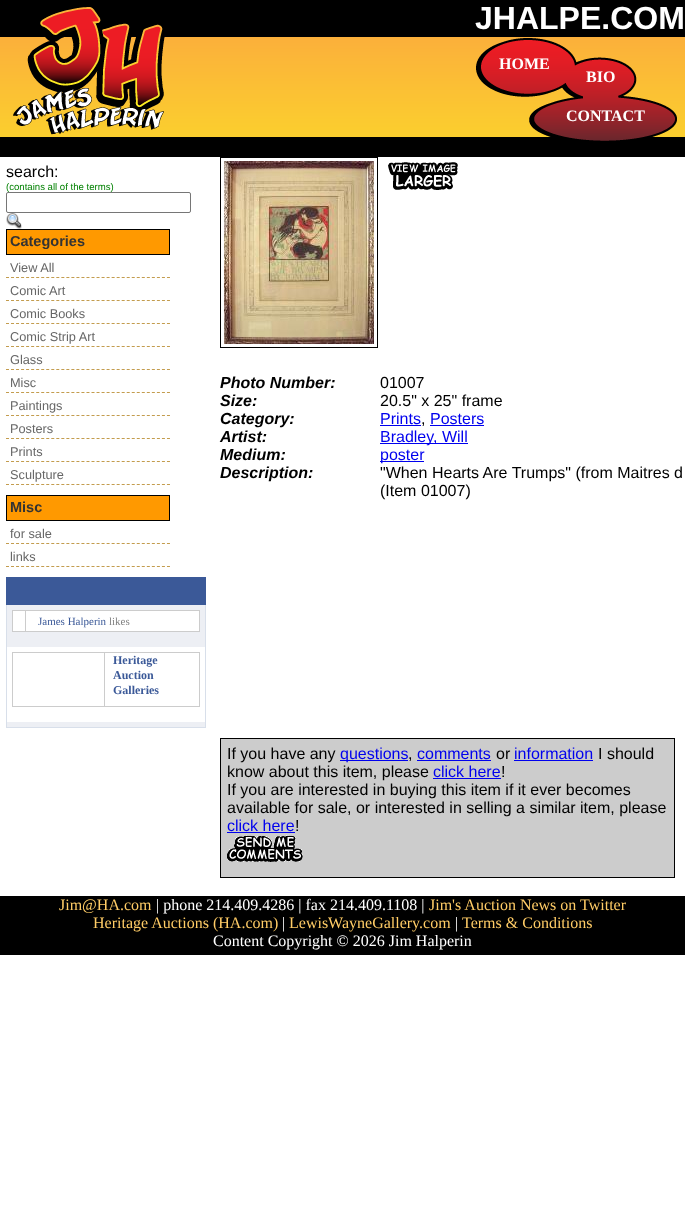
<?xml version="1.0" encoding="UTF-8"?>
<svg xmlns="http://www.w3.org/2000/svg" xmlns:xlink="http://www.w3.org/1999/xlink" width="685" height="1219">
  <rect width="100%" height="100%" fill="#ffffff" />
  <rect width="685" height="37" fill="#000000" />
  <image x="0" y="37" width="685" height="100" xlink:href="image2.png" />
  <image x="13" y="7" width="152" height="128" xlink:href="image1.png" />
  <rect y="137" width="685" height="20" fill="#000000" />
  <image x="476" y="38" width="201" height="103" xlink:href="image3.png" />
  <rect x="6.5" y="192.5" width="184" height="20" rx="1.5" fill="none" stroke="#767676" />
  <image x="6" y="213" width="16" height="16" xlink:href="image4.png" />
  <rect x="6.5" y="229.5" width="163" height="25" fill="#ff9900" stroke="#000000" />
  <path d="M 6 277.5 h 164" fill="none" stroke="#c39c4e" stroke-dasharray="3 2.03" />
  <path d="M 6 300.5 h 164" fill="none" stroke="#c39c4e" stroke-dasharray="3 2.03" />
  <path d="M 6 323.5 h 164" fill="none" stroke="#c39c4e" stroke-dasharray="3 2.03" />
  <path d="M 6 346.5 h 164" fill="none" stroke="#c39c4e" stroke-dasharray="3 2.03" />
  <path d="M 6 369.5 h 164" fill="none" stroke="#c39c4e" stroke-dasharray="3 2.03" />
  <path d="M 6 392.5 h 164" fill="none" stroke="#c39c4e" stroke-dasharray="3 2.03" />
  <path d="M 6 415.5 h 164" fill="none" stroke="#c39c4e" stroke-dasharray="3 2.03" />
  <path d="M 6 438.5 h 164" fill="none" stroke="#c39c4e" stroke-dasharray="3 2.03" />
  <path d="M 6 461.5 h 164" fill="none" stroke="#c39c4e" stroke-dasharray="3 2.03" />
  <path d="M 6 484.5 h 164" fill="none" stroke="#c39c4e" stroke-dasharray="3 2.03" />
  <rect x="6.5" y="495.5" width="163" height="25" fill="#ff9900" stroke="#000000" />
  <path d="M 6 543.5 h 164" fill="none" stroke="#c39c4e" stroke-dasharray="3 2.03" />
  <path d="M 6 566.5 h 164" fill="none" stroke="#c39c4e" stroke-dasharray="3 2.03" />
  <rect x="6" y="577" width="200" height="28" fill="#3b5998" />
  <rect x="7" y="605" width="198" height="122" fill="#edeff4" />
  <rect x="205" y="605" width="1" height="123" fill="#d8dfea" />
  <rect x="6" y="727" width="200" height="1" fill="#d8dfea" />
  <rect x="6" y="605" width="1" height="123" fill="#d8dfea" />
  <rect x="13" y="611" width="186" height="20" fill="#ffffff" />
  <rect x="12" y="610" width="188" height="1" fill="#cccccc" />
  <rect x="12" y="631" width="188" height="1" fill="#cccccc" />
  <rect x="12" y="610" width="1" height="22" fill="#cccccc" />
  <rect x="25" y="611" width="1" height="20" fill="#cccccc" />
  <rect x="199" y="611" width="1" height="20" fill="#cccccc" />
  <rect x="7" y="647" width="198" height="75" fill="#ffffff" />
  <rect x="12" y="652" width="188" height="1" fill="#cccccc" />
  <rect x="12" y="706" width="188" height="1" fill="#cccccc" />
  <rect x="12" y="652" width="1" height="55" fill="#cccccc" />
  <rect x="104" y="653" width="1" height="53" fill="#cccccc" />
  <rect x="199" y="653" width="1" height="53" fill="#cccccc" />
  <rect x="220.5" y="157.5" width="157" height="190" fill="none" stroke="#000000" />
  <image x="224" y="161" width="150" height="183" xlink:href="image5.png" />
  <image x="388" y="162" width="70" height="28" xlink:href="image6.png" />
  <rect x="380" y="425" width="41" height="1" fill="#0000ee" />
  <rect x="430" y="425" width="54" height="1" fill="#0000ee" />
  <rect x="380" y="443" width="88" height="1" fill="#0000ee" />
  <rect x="380" y="461" width="44" height="1" fill="#0000ee" />
  <rect x="220.5" y="738.5" width="454" height="139" fill="#cccccc" stroke="#000000" />
  <rect x="340" y="760" width="68" height="1" fill="#0000ee" />
  <rect x="417" y="760" width="74" height="1" fill="#0000ee" />
  <rect x="514" y="760" width="79" height="1" fill="#0000ee" />
  <rect x="433" y="778" width="68" height="1" fill="#0000ee" />
  <rect x="227" y="832" width="68" height="1" fill="#0000ee" />
  <image x="227" y="835" width="76" height="27" xlink:href="image7.png" />
  <rect y="896" width="685" height="59" fill="#000000" />
  <text x="475" y="29" style="font-family: Liberation Sans; font-size: 32px; font-weight: bold; fill: #ffffff">JHALPE.COM</text>
  <text x="499" y="69" style="font-family: Liberation Serif; font-size: 16px; font-weight: bold; fill: #ffffff">HOME</text>
  <text x="586" y="82" style="font-family: Liberation Serif; font-size: 16px; font-weight: bold; fill: #ffffff">BIO</text>
  <text x="566" y="121" style="font-family: Liberation Serif; font-size: 16px; font-weight: bold; fill: #ffffff">CONTACT</text>
  <text x="6" y="177" style="font-family: Liberation Sans; font-size: 16px; fill: #000000">search:</text>
  <text x="6" y="190" style="font-family: Liberation Sans; font-size: 9.6px; fill: #008000">(contains all of the terms)</text>
  <text x="10" y="246" style="font-family: Liberation Sans; font-size: 14.5px; font-weight: bold; fill: #333333">Categories</text>
  <text x="10" y="272" style="font-family: Liberation Sans; font-size: 12.75px; fill: #666666">View All</text>
  <text x="10" y="295" style="font-family: Liberation Sans; font-size: 12.75px; fill: #666666">Comic Art</text>
  <text x="10" y="318" style="font-family: Liberation Sans; font-size: 12.75px; fill: #666666">Comic Books</text>
  <text x="10" y="341" style="font-family: Liberation Sans; font-size: 12.75px; fill: #666666">Comic Strip Art</text>
  <text x="10" y="364" style="font-family: Liberation Sans; font-size: 12.75px; fill: #666666">Glass</text>
  <text x="10" y="387" style="font-family: Liberation Sans; font-size: 12.75px; fill: #666666">Misc</text>
  <text x="10" y="410" style="font-family: Liberation Sans; font-size: 12.75px; fill: #666666">Paintings</text>
  <text x="10" y="433" style="font-family: Liberation Sans; font-size: 12.75px; fill: #666666">Posters</text>
  <text x="10" y="456" style="font-family: Liberation Sans; font-size: 12.75px; fill: #666666">Prints</text>
  <text x="10" y="479" style="font-family: Liberation Sans; font-size: 12.75px; fill: #666666">Sculpture</text>
  <text x="10" y="512" style="font-family: Liberation Sans; font-size: 14.5px; font-weight: bold; fill: #333333">Misc</text>
  <text x="10" y="538" style="font-family: Liberation Sans; font-size: 12.75px; fill: #666666">for sale</text>
  <text x="10" y="561" style="font-family: Liberation Sans; font-size: 12.75px; fill: #666666">links</text>
  <text x="38" y="625" style="font-family: Liberation Serif; font-size: 11px; fill: #3b5998">James Halperin</text>
  <text x="109" y="625" style="font-family: Liberation Serif; font-size: 11px; fill: #808080">likes</text>
  <text x="113" y="664" style="font-family: Liberation Serif; font-size: 12px; font-weight: bold; fill: #3b5998">Heritage</text>
  <text x="113" y="679" style="font-family: Liberation Serif; font-size: 12px; font-weight: bold; fill: #3b5998">Auction</text>
  <text x="113" y="694" style="font-family: Liberation Serif; font-size: 12px; font-weight: bold; fill: #3b5998">Galleries</text>
  <text x="220" y="388" style="font-family: Liberation Sans; font-size: 16px; font-weight: bold; font-style: italic; fill: #000000">Photo Number:</text>
  <text x="380" y="388" style="font-family: Liberation Sans; font-size: 16px; fill: #000000">01007</text>
  <text x="220" y="406" style="font-family: Liberation Sans; font-size: 16px; font-weight: bold; font-style: italic; fill: #000000">Size:</text>
  <text x="380" y="406" style="font-family: Liberation Sans; font-size: 16px; fill: #000000">20.5" x 25" frame</text>
  <text x="220" y="424" style="font-family: Liberation Sans; font-size: 16px; font-weight: bold; font-style: italic; fill: #000000">Category:</text>
  <text x="380" y="424" style="font-family: Liberation Sans; font-size: 16px; fill: #0000ee">Prints</text>
  <text x="421" y="424" style="font-family: Liberation Sans; font-size: 16px; fill: #000000">,</text>
  <text x="430" y="424" style="font-family: Liberation Sans; font-size: 16px; fill: #0000ee">Posters</text>
  <text x="220" y="442" style="font-family: Liberation Sans; font-size: 16px; font-weight: bold; font-style: italic; fill: #000000">Artist:</text>
  <text x="380" y="442" style="font-family: Liberation Sans; font-size: 16px; fill: #0000ee">Bradley, Will</text>
  <text x="220" y="460" style="font-family: Liberation Sans; font-size: 16px; font-weight: bold; font-style: italic; fill: #000000">Medium:</text>
  <text x="380" y="460" style="font-family: Liberation Sans; font-size: 16px; fill: #0000ee">poster</text>
  <text x="220" y="478" style="font-family: Liberation Sans; font-size: 16px; font-weight: bold; font-style: italic; fill: #000000">Description:</text>
  <text x="380" y="478" style="font-family: Liberation Sans; font-size: 16px; fill: #000000">"When Hearts Are Trumps" (from Maitres d</text>
  <text x="380" y="496" style="font-family: Liberation Sans; font-size: 16px; fill: #000000">(Item 01007)</text>
  <text x="227" y="759" style="font-family: Liberation Sans; font-size: 16px; fill: #000000">If you have any</text>
  <text x="340" y="759" style="font-family: Liberation Sans; font-size: 16px; fill: #0000ee">questions</text>
  <text x="408" y="759" style="font-family: Liberation Sans; font-size: 16px; fill: #000000">,</text>
  <text x="417" y="759" style="font-family: Liberation Sans; font-size: 16px; fill: #0000ee">comments</text>
  <text x="496" y="759" style="font-family: Liberation Sans; font-size: 16px; fill: #000000">or</text>
  <text x="514" y="759" style="font-family: Liberation Sans; font-size: 16px; fill: #0000ee">information</text>
  <text x="598" y="759" style="font-family: Liberation Sans; font-size: 16px; fill: #000000">I should</text>
  <text x="227" y="777" style="font-family: Liberation Sans; font-size: 16px; fill: #000000">know about this item, please</text>
  <text x="433" y="777" style="font-family: Liberation Sans; font-size: 16px; fill: #0000ee">click here</text>
  <text x="501" y="777" style="font-family: Liberation Sans; font-size: 16px; fill: #000000">!</text>
  <text x="227" y="795" style="font-family: Liberation Sans; font-size: 16px; fill: #000000">If you are interested in buying this item if it ever becomes</text>
  <text x="227" y="813" style="font-family: Liberation Sans; font-size: 16px; fill: #000000">available for sale, or interested in selling a similar item, please</text>
  <text x="227" y="831" style="font-family: Liberation Sans; font-size: 16px; fill: #0000ee">click here</text>
  <text x="295" y="831" style="font-family: Liberation Sans; font-size: 16px; fill: #000000">!</text>
  <text x="59" y="910" style="font-family: Liberation Serif; font-size: 16px; fill: #ffcc66">Jim@HA.com</text>
  <text x="156" y="910" style="font-family: Liberation Serif; font-size: 16px; fill: #ffffff">| phone 214.409.4286 | fax 214.409.1108 |</text>
  <text x="429" y="910" style="font-family: Liberation Serif; font-size: 16px; fill: #ffcc66">Jim's Auction News on Twitter</text>
  <text x="93" y="928" style="font-family: Liberation Serif; font-size: 16px; fill: #ffcc66">Heritage Auctions (HA.com)</text>
  <text x="282" y="928" style="font-family: Liberation Serif; font-size: 16px; fill: #ffffff">|</text>
  <text x="289" y="928" style="font-family: Liberation Serif; font-size: 16px; fill: #ffcc66">LewisWayneGallery.com</text>
  <text x="455" y="928" style="font-family: Liberation Serif; font-size: 16px; fill: #ffffff">|</text>
  <text x="462" y="928" style="font-family: Liberation Serif; font-size: 16px; fill: #ffcc66">Terms &amp; Conditions</text>
  <text x="213" y="946" style="font-family: Liberation Serif; font-size: 16px; fill: #ffffff">Content Copyright © 2026 Jim Halperin</text>
</svg>
